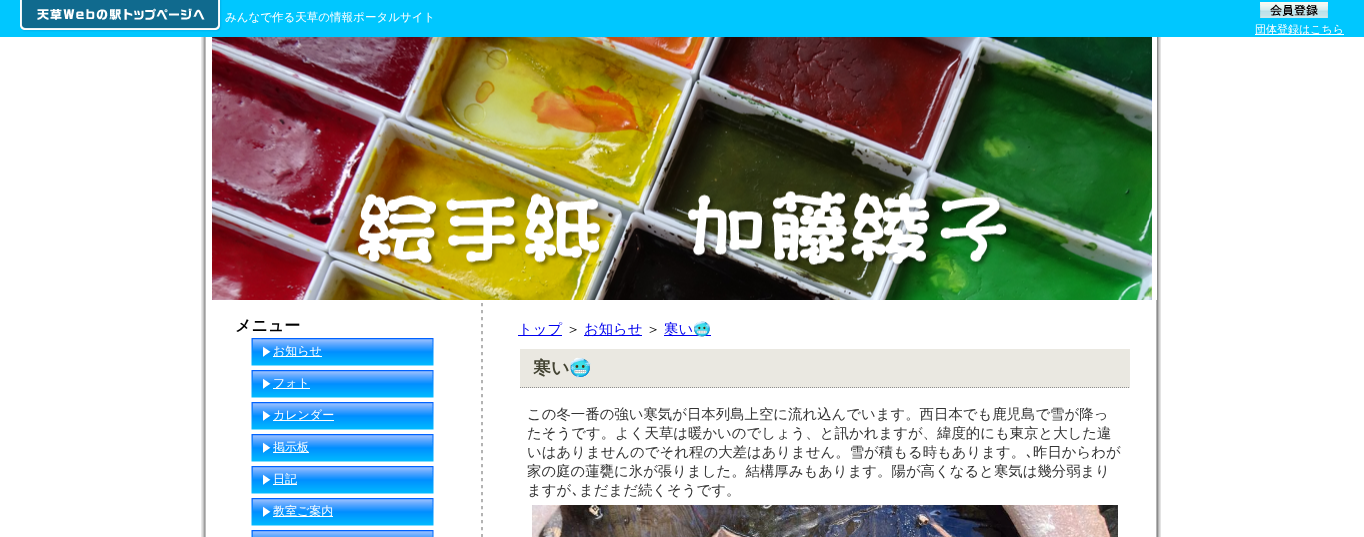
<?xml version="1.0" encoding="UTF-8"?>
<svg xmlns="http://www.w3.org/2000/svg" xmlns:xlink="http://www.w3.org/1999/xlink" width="1364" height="537">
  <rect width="100%" height="100%" fill="#ffffff" />
  <image x="201" y="37" width="960" height="500" xlink:href="image1.png" />
  <rect width="1364" height="37" fill="#00c7ff" />
  <image x="20" y="0" width="202" height="32" xlink:href="image2.png" />
  <image x="1260" y="2" width="68" height="16" xlink:href="image3.png" />
  <rect x="1255" y="34" width="89" height="1" fill="#ffffff" />
  <rect x="1156" y="37" width="1" height="263" fill="#ffffff" />
  <image x="212" y="37" width="940" height="263" xlink:href="image4.png" />
  <image x="481" y="303" width="2" height="234" xlink:href="image5.png" />
  <image x="251" y="338" width="183" height="28" xlink:href="image6.png" />
  <rect x="273" y="356" width="49" height="1" fill="#ffffff" />
  <image x="251" y="370" width="183" height="28" xlink:href="image6.png" />
  <rect x="273" y="388" width="37" height="1" fill="#ffffff" />
  <image x="251" y="402" width="183" height="28" xlink:href="image6.png" />
  <rect x="273" y="420" width="61" height="1" fill="#ffffff" />
  <image x="251" y="434" width="183" height="28" xlink:href="image6.png" />
  <rect x="273" y="452" width="36" height="1" fill="#ffffff" />
  <image x="251" y="466" width="183" height="28" xlink:href="image6.png" />
  <rect x="273" y="484" width="24" height="1" fill="#ffffff" />
  <image x="251" y="498" width="183" height="28" xlink:href="image6.png" />
  <rect x="273" y="516" width="60" height="1" fill="#ffffff" />
  <image x="251" y="530" width="183" height="7" xlink:href="image7.png" />
  <rect x="518" y="335" width="44" height="1" fill="#0000ee" />
  <rect x="584" y="335" width="58" height="1" fill="#0000ee" />
  <rect x="664" y="335" width="47" height="1" fill="#0000ee" />
  <rect x="520" y="349" width="610" height="39" fill="#eae8e1" />
  <path d="M 520 387.5 h 610" fill="none" stroke="#8e8e8e" stroke-dasharray="1 1" />
  <image x="532" y="505" width="586" height="32" xlink:href="image8.png" />
  <text x="225" y="21" style="font-family: WenQuanYi Zen Hei; font-size: 11.5px; font-weight: 500; fill: #ffffff">みんなで作る天草の情報ポータルサイト</text>
  <text x="1255" y="33" style="font-family: WenQuanYi Zen Hei; font-size: 11px; font-weight: 500; fill: #ffffff">団体登録はこちら</text>
  <text x="235" y="331" style="font-family: WenQuanYi Zen Hei; font-size: 16px; font-weight: bold; fill: #000000">メニュー</text>
  <text x="273" y="355" style="font-family: WenQuanYi Zen Hei; font-size: 12px; font-weight: 500; fill: #ffffff">お知らせ</text>
  <text x="273" y="387" style="font-family: WenQuanYi Zen Hei; font-size: 12px; font-weight: 500; fill: #ffffff">フォト</text>
  <text x="273" y="419" style="font-family: WenQuanYi Zen Hei; font-size: 12px; font-weight: 500; fill: #ffffff">カレンダー</text>
  <text x="273" y="451" style="font-family: WenQuanYi Zen Hei; font-size: 12px; font-weight: 500; fill: #ffffff">掲示板</text>
  <text x="273" y="483" style="font-family: WenQuanYi Zen Hei; font-size: 12px; font-weight: 500; fill: #ffffff">日記</text>
  <text x="273" y="515" style="font-family: WenQuanYi Zen Hei; font-size: 12px; font-weight: 500; fill: #ffffff">教室ご案内</text>
  <text x="518" y="334" style="font-family: WenQuanYi Zen Hei; font-size: 14.4px; font-weight: 500; fill: #0000ee">トップ</text>
  <text x="566" y="334" style="font-family: WenQuanYi Zen Hei; font-size: 14.4px; font-weight: 500; fill: #000000">＞</text>
  <text x="584" y="334" style="font-family: WenQuanYi Zen Hei; font-size: 14.4px; font-weight: 500; fill: #0000ee">お知らせ</text>
  <text x="646" y="334" style="font-family: WenQuanYi Zen Hei; font-size: 14.4px; font-weight: 500; fill: #000000">＞</text>
  <text x="664" y="334" style="font-family: WenQuanYi Zen Hei; font-size: 14.4px; font-weight: 500; fill: #0000ee">寒い</text>
  <text x="693" y="334" style="font-family: Noto Color Emoji; font-size: 14.4px; fill: #0000ee">🥶</text>
  <text x="533" y="374" style="font-family: WenQuanYi Zen Hei; font-size: 18px; font-weight: bold; fill: #444433">寒い</text>
  <text x="569" y="374" style="font-family: Noto Color Emoji; font-size: 18px; font-weight: bold; fill: #444433">🥶</text>
  <text x="527" y="419" style="font-family: WenQuanYi Zen Hei; font-size: 14.4px; font-weight: 500; fill: #333333">この冬一番の強い寒気が日本列島上空に流れ込んでいます。西日本でも鹿児島で雪が降っ</text>
  <text x="527" y="438" style="font-family: WenQuanYi Zen Hei; font-size: 14.4px; font-weight: 500; fill: #333333">たそうです。よく天草は暖かいのでしょう、と訊かれますが、緯度的にも東京と大した違</text>
  <text x="527" y="457" style="font-family: WenQuanYi Zen Hei; font-size: 14.4px; font-weight: 500; fill: #333333">いはありませんのでそれ程の大差はありません。雪が積もる時もあります。</text>
  <text x="1026" y="457" style="font-family: IPAGothic; font-size: 14.4px; fill: #333333">､</text>
  <text x="1033" y="457" style="font-family: WenQuanYi Zen Hei; font-size: 14.4px; font-weight: 500; fill: #333333">昨日からわが</text>
  <text x="527" y="476" style="font-family: WenQuanYi Zen Hei; font-size: 14.4px; font-weight: 500; fill: #333333">家の庭の蓮甕に氷が張りました。結構厚みもあります。陽が高くなると寒気は幾分弱まり</text>
  <text x="527" y="495" style="font-family: WenQuanYi Zen Hei; font-size: 14.4px; font-weight: 500; fill: #333333">ますが</text>
  <text x="572" y="495" style="font-family: IPAGothic; font-size: 14.4px; fill: #333333">､</text>
  <text x="579" y="495" style="font-family: WenQuanYi Zen Hei; font-size: 14.4px; font-weight: 500; fill: #333333">まだまだ続くそうです。</text>
</svg>
